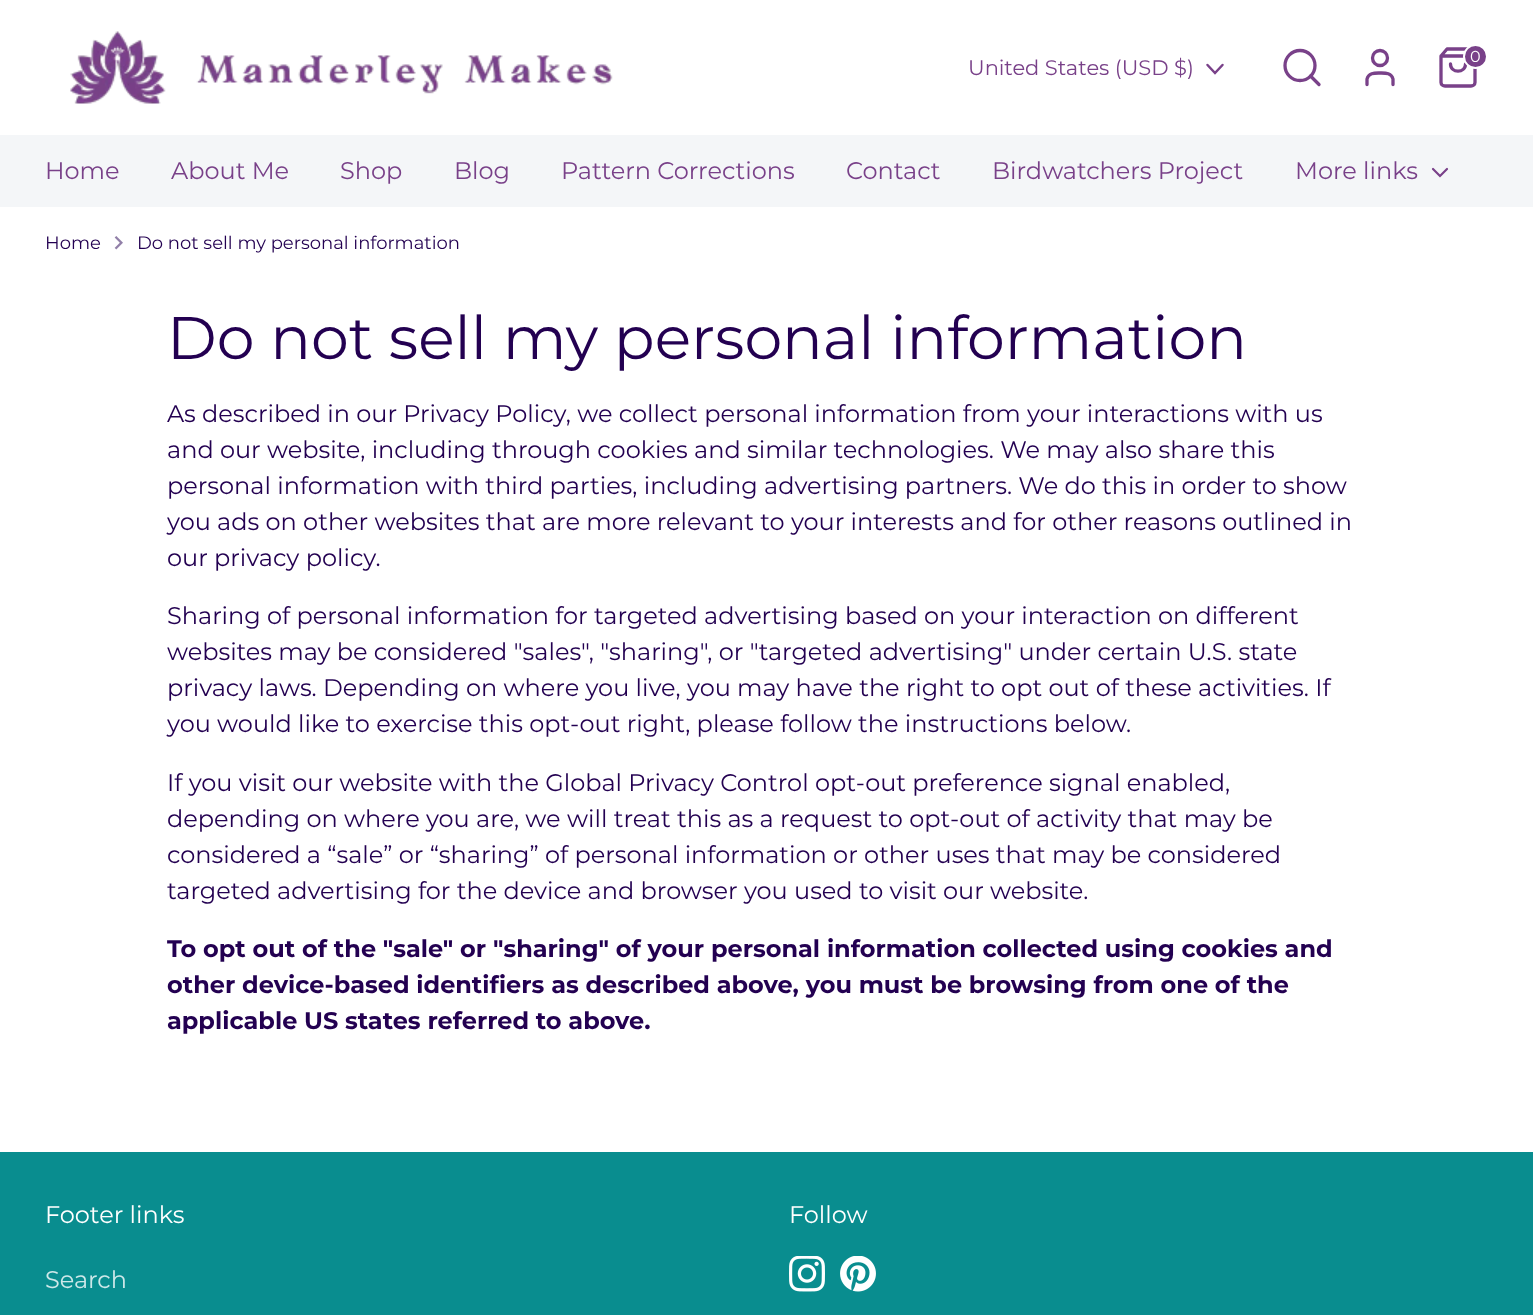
<?xml version="1.0" encoding="UTF-8"?>
<svg xmlns="http://www.w3.org/2000/svg" xmlns:xlink="http://www.w3.org/1999/xlink" width="1533" height="1315">
  <rect width="100%" height="100%" fill="#ffffff" />
  <image x="70" y="31" width="543" height="73" xlink:href="image1.png" />
  <path d="M 1207.5 65 l 7.5 8 l 7.5 -8" fill="none" stroke="#794189" stroke-width="2.5" stroke-linecap="round" />
  <circle cx="1300" cy="65.5" r="15" fill="none" stroke="#794189" stroke-width="3.3" />
  <path d="M 1319 84.5 l -8.5 -8.5" fill="none" stroke="#794189" stroke-width="3.3" stroke-linecap="round" stroke-linejoin="round" />
  <path d="M 1393 84.5 v -5.5 c -1.5 -6.5 -8 -6 -13 -6 c -5 0 -11.5 -0.5 -13 6 v 5.5" fill="none" stroke="#794189" stroke-width="3.3" stroke-linecap="round" stroke-linejoin="round" />
  <circle cx="1380" cy="58" r="7.5" fill="none" stroke="#794189" stroke-width="3.3" />
  <path d="M 1447 49 l -6 7 v 26.5 c 0 2 2 3.5 4 3.5 h 26 c 2 0 4 -1.5 4 -3.5 v -26.5 l -6 -7 z m -6 7 h 34 m -9.5 8 c 0 9.5 -15 9.5 -15 0" fill="none" stroke="#794189" stroke-width="3.3" stroke-linecap="round" stroke-linejoin="round" />
  <circle cx="1475.5" cy="56.5" r="11.5" fill="#794189" stroke="#ffffff" stroke-width="2" />
  <rect y="135" width="1533" height="72" fill="#f4f6f8" />
  <path d="M 1433 169 l 7 7 l 7 -7" fill="none" stroke="#794189" stroke-width="2.2" stroke-linecap="round" />
  <image x="114" y="236" width="9" height="14" xlink:href="image2.png" />
  <rect y="1152" width="1533" height="163" fill="#098d8f" />
  <image x="789" y="1256" width="36" height="36" xlink:href="image3.png" />
  <image x="840" y="1256" width="36" height="36" xlink:href="image4.png" />
  <text x="968" y="75" style="font-family: Montserrat; font-size: 21px; fill: #794189">United States (USD $)</text>
  <text x="1470" y="62" style="font-family: Montserrat; font-size: 16px; fill: #ffffff">0</text>
  <text x="45" y="179" style="font-family: Montserrat; font-size: 24px; fill: #794189">Home</text>
  <text x="171" y="179" style="font-family: Montserrat; font-size: 24px; fill: #794189">About Me</text>
  <text x="340" y="179" style="font-family: Montserrat; font-size: 24px; fill: #794189">Shop</text>
  <text x="454" y="179" style="font-family: Montserrat; font-size: 24px; fill: #794189">Blog</text>
  <text x="561" y="179" style="font-family: Montserrat; font-size: 24px; fill: #794189">Pattern Corrections</text>
  <text x="846" y="179" style="font-family: Montserrat; font-size: 24px; fill: #794189">Contact</text>
  <text x="992" y="179" style="font-family: Montserrat; font-size: 24px; fill: #794189">Birdwatchers Project</text>
  <text x="1295" y="179" style="font-family: Montserrat; font-size: 24px; fill: #794189">More links</text>
  <text x="45" y="249" style="font-family: Montserrat; font-size: 18px; fill: #230051">Home</text>
  <text x="137" y="249" style="font-family: Montserrat; font-size: 18px; fill: #230051">Do not sell my personal information</text>
  <text x="167" y="359" style="font-family: Montserrat; font-size: 60.2px; fill: #230051">Do not sell my personal information</text>
  <text x="167" y="422" style="font-family: Montserrat; font-size: 24px; fill: #230051">As described in our Privacy Policy, we collect personal information from your interactions with us</text>
  <text x="167" y="458" style="font-family: Montserrat; font-size: 24px; fill: #230051">and our website, including through cookies and similar technologies. We may also share this</text>
  <text x="167" y="494" style="font-family: Montserrat; font-size: 24px; fill: #230051">personal information with third parties, including advertising partners. We do this in order to show</text>
  <text x="167" y="530" style="font-family: Montserrat; font-size: 24px; fill: #230051">you ads on other websites that are more relevant to your interests and for other reasons outlined in</text>
  <text x="167" y="566" style="font-family: Montserrat; font-size: 24px; fill: #230051">our privacy policy.</text>
  <text x="167" y="624" style="font-family: Montserrat; font-size: 24px; fill: #230051">Sharing of personal information for targeted advertising based on your interaction on different</text>
  <text x="167" y="660" style="font-family: Montserrat; font-size: 24px; fill: #230051">websites may be considered "sales", "sharing", or "targeted advertising" under certain U.S. state</text>
  <text x="167" y="696" style="font-family: Montserrat; font-size: 24px; fill: #230051">privacy laws. Depending on where you live, you may have the right to opt out of these activities. If</text>
  <text x="167" y="732" style="font-family: Montserrat; font-size: 24px; fill: #230051">you would like to exercise this opt-out right, please follow the instructions below.</text>
  <text x="167" y="791" style="font-family: Montserrat; font-size: 24px; fill: #230051">If you visit our website with the Global Privacy Control opt-out preference signal enabled,</text>
  <text x="167" y="827" style="font-family: Montserrat; font-size: 24px; fill: #230051">depending on where you are, we will treat this as a request to opt-out of activity that may be</text>
  <text x="167" y="863" style="font-family: Montserrat; font-size: 24px; fill: #230051">considered a “sale” or “sharing” of personal information or other uses that may be considered</text>
  <text x="167" y="899" style="font-family: Montserrat; font-size: 24px; fill: #230051">targeted advertising for the device and browser you used to visit our website.</text>
  <text x="167" y="957" style="font-family: Montserrat; font-size: 24px; font-weight: bold; fill: #230051">To opt out of the "sale" or "sharing" of your personal information collected using cookies and</text>
  <text x="167" y="993" style="font-family: Montserrat; font-size: 24px; font-weight: bold; fill: #230051">other device-based identifiers as described above, you must be browsing from one of the</text>
  <text x="167" y="1029" style="font-family: Montserrat; font-size: 24px; font-weight: bold; fill: #230051">applicable US states referred to above.</text>
  <text x="45" y="1223" style="font-family: Montserrat; font-size: 24px; fill: #ffffff">Footer links</text>
  <text x="45" y="1288" style="font-family: Montserrat; font-size: 24px; fill: #cee8e9">Search</text>
  <text x="789" y="1223" style="font-family: Montserrat; font-size: 24px; fill: #ffffff">Follow</text>
</svg>
